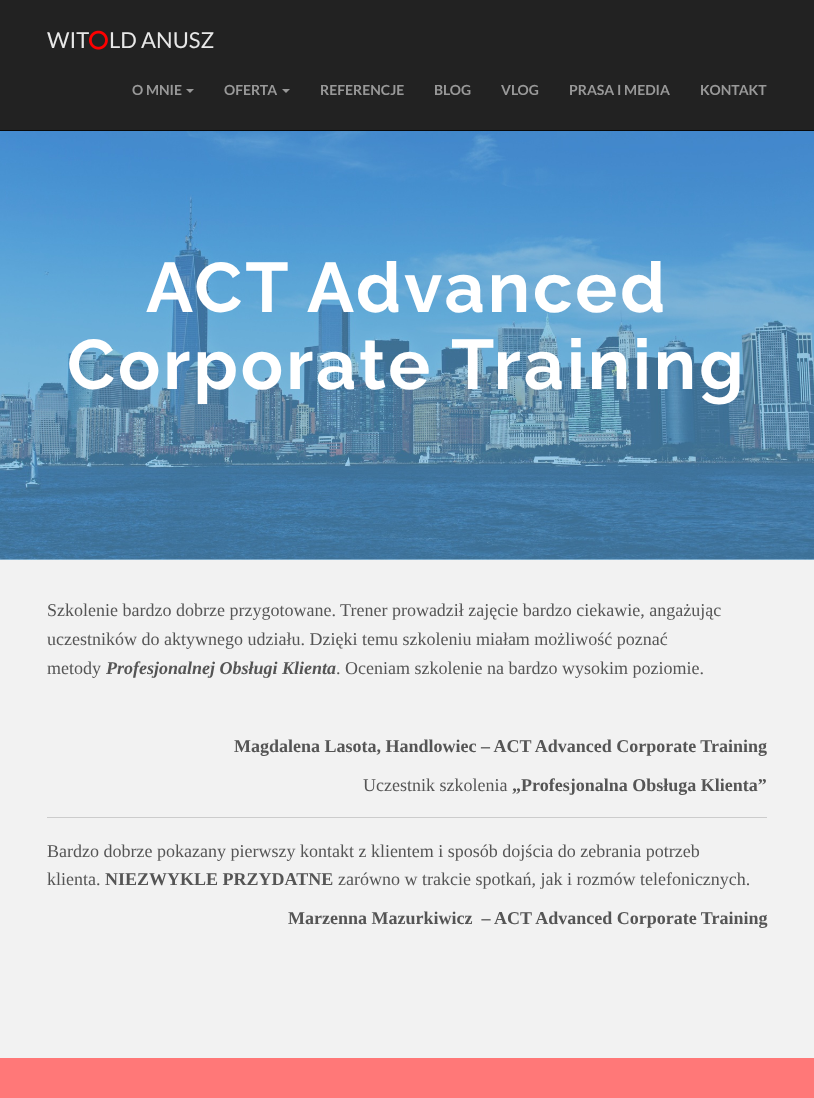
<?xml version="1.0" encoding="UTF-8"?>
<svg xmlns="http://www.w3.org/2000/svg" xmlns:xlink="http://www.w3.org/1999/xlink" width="814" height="1098">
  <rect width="100%" height="100%" fill="#f2f2f2" />
  <rect width="814" height="130" fill="#222222" />
  <rect y="130" width="814" height="1" fill="#080808" />
  <image x="89" y="30" width="19" height="20" xlink:href="image1.png" />
  <path d="M 186 89 h 8 l -4 4 z" fill="#999999" />
  <path d="M 282 89 h 8 l -4 4 z" fill="#999999" />
  <image x="0" y="131" width="814" height="429" xlink:href="image2.png" />
  <rect x="47" y="817" width="720" height="1" fill="#cccccc" />
  <rect y="1058" width="814" height="40" fill="#ff7878" />
  <text x="47" y="48" style="font-family: Lato; font-size: 22px; fill: #e7e7e7">WIT</text>
  <text x="109" y="48" style="font-family: Lato; font-size: 22px; fill: #e7e7e7">LD ANUSZ</text>
  <text x="132" y="95" style="font-family: Lato; font-size: 14px; font-weight: bold; fill: #999999">O MNIE</text>
  <text x="224" y="95" style="font-family: Lato; font-size: 14px; font-weight: bold; fill: #999999">OFERTA</text>
  <text x="320" y="95" style="font-family: Lato; font-size: 14px; font-weight: bold; fill: #999999">REFERENCJE</text>
  <text x="434" y="95" style="font-family: Lato; font-size: 14px; font-weight: bold; fill: #999999">BLOG</text>
  <text x="501" y="95" style="font-family: Lato; font-size: 14px; font-weight: bold; fill: #999999">VLOG</text>
  <text x="569" y="95" style="font-family: Lato; font-size: 14px; font-weight: bold; fill: #999999">PRASA I MEDIA</text>
  <text x="700" y="95" style="font-family: Lato; font-size: 14px; font-weight: bold; fill: #999999">KONTAKT</text>
  <text x="146" y="312" style="font-family: Raleway; font-size: 70px; font-weight: bold; letter-spacing: 3px; fill: #ffffff">ACT Advanced</text>
  <text x="67" y="389" style="font-family: Raleway; font-size: 70px; font-weight: bold; letter-spacing: 3px; fill: #ffffff">Corporate Training</text>
  <text x="47" y="616" style="font-family: Liberation Serif; font-size: 18px; fill: #555555">Szkolenie bardzo dobrze przygotowane. Trener prowadził zajęcie bardzo ciekawie, angażując</text>
  <text x="47" y="645" style="font-family: Liberation Serif; font-size: 18px; fill: #555555">uczestników do aktywnego udziału. Dzięki temu szkoleniu miałam możliwość poznać</text>
  <text x="47" y="674" style="font-family: Liberation Serif; font-size: 18px; fill: #555555">metody</text>
  <text x="106" y="674" style="font-family: Liberation Serif; font-size: 18px; font-weight: bold; font-style: italic; fill: #555555">Profesjonalnej Obsługi Klienta</text>
  <text x="336" y="674" style="font-family: Liberation Serif; font-size: 18px; fill: #555555">. Oceniam szkolenie na bardzo wysokim poziomie.</text>
  <text x="234" y="752" style="font-family: Liberation Serif; font-size: 18px; font-weight: bold; fill: #555555">Magdalena Lasota, Handlowiec – ACT Advanced Corporate Training</text>
  <text x="363" y="791" style="font-family: Liberation Serif; font-size: 18px; fill: #555555">Uczestnik szkolenia</text>
  <text x="512" y="791" style="font-family: Liberation Serif; font-size: 18px; font-weight: bold; fill: #555555">„Profesjonalna Obsługa Klienta”</text>
  <text x="47" y="857" style="font-family: Liberation Serif; font-size: 18px; fill: #555555">Bardzo dobrze pokazany pierwszy kontakt z klientem i sposób dojścia do zebrania potrzeb</text>
  <text x="47" y="885" style="font-family: Liberation Serif; font-size: 18px; fill: #555555">klienta.</text>
  <text x="105" y="885" style="font-family: Liberation Serif; font-size: 18px; font-weight: bold; fill: #555555">NIEZWYKLE PRZYDATNE</text>
  <text x="338" y="885" style="font-family: Liberation Serif; font-size: 18px; fill: #555555">zarówno w trakcie spotkań, jak i rozmów telefonicznych.</text>
  <text x="288" y="924" style="font-family: Liberation Serif; font-size: 18px; font-weight: bold; fill: #555555" xml:space="preserve">Marzenna Mazurkiwicz  – ACT Advanced Corporate Training</text>
</svg>
